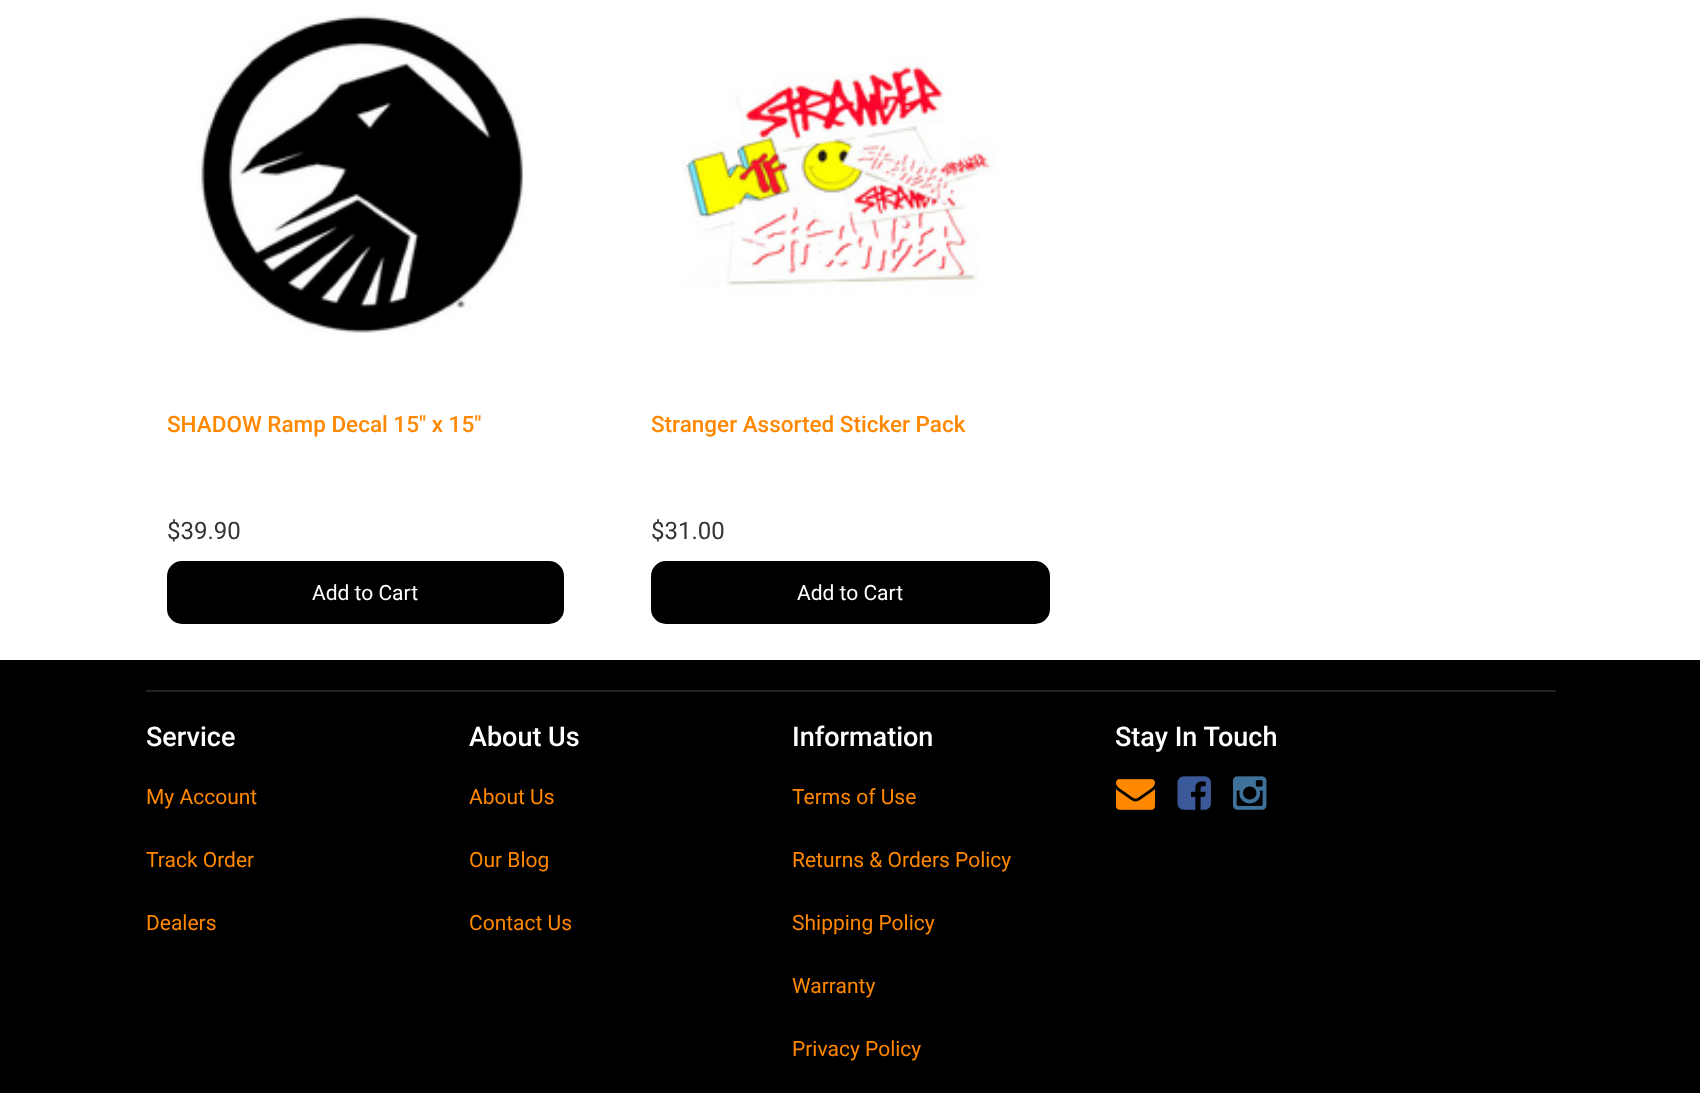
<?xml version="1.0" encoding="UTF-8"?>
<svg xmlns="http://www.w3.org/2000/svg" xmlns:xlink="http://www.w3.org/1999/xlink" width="1700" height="1093">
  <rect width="100%" height="100%" fill="#ffffff" />
  <image x="198" y="15" width="326" height="319" xlink:href="image1.png" />
  <rect x="168" y="562" width="395" height="61" rx="14" fill="#000000" stroke="#000000" stroke-width="2" />
  <image x="682" y="57" width="313" height="237" xlink:href="image2.png" />
  <rect x="652" y="562" width="397" height="61" rx="14" fill="#000000" stroke="#000000" stroke-width="2" />
  <rect y="660" width="1700" height="433" fill="#000000" />
  <rect x="146" y="690" width="1410" height="2" fill="#222222" />
  <image x="1116" y="779" width="39" height="31" xlink:href="image3.png" />
  <image x="1177" y="776" width="34" height="34" xlink:href="image4.png" />
  <image x="1233" y="776" width="34" height="34" xlink:href="image5.png" />
  <text x="167" y="432" style="font-family: Roboto; font-size: 22.5px; font-weight: 500; fill: #ff8800">SHADOW Ramp Decal 15" x 15"</text>
  <text x="167" y="539" style="font-family: Roboto; font-size: 24px; fill: #333333">$39.90</text>
  <text x="312" y="600" style="font-family: Roboto; font-size: 21px; fill: #ffffff">Add to Cart</text>
  <text x="651" y="432" style="font-family: Roboto; font-size: 22.5px; font-weight: 500; fill: #ff8800">Stranger Assorted Sticker Pack</text>
  <text x="651" y="539" style="font-family: Roboto; font-size: 24px; fill: #333333">$31.00</text>
  <text x="797" y="600" style="font-family: Roboto; font-size: 21px; fill: #ffffff">Add to Cart</text>
  <text x="146" y="746" style="font-family: Roboto; font-size: 27px; font-weight: 500; fill: #ffffff">Service</text>
  <text x="146" y="804" style="font-family: Roboto; font-size: 21px; fill: #ff8800">My Account</text>
  <text x="146" y="867" style="font-family: Roboto; font-size: 21px; fill: #ff8800">Track Order</text>
  <text x="146" y="930" style="font-family: Roboto; font-size: 21px; fill: #ff8800">Dealers</text>
  <text x="469" y="746" style="font-family: Roboto; font-size: 27px; font-weight: 500; fill: #ffffff">About Us</text>
  <text x="469" y="804" style="font-family: Roboto; font-size: 21px; fill: #ff8800">About Us</text>
  <text x="469" y="867" style="font-family: Roboto; font-size: 21px; fill: #ff8800">Our Blog</text>
  <text x="469" y="930" style="font-family: Roboto; font-size: 21px; fill: #ff8800">Contact Us</text>
  <text x="792" y="746" style="font-family: Roboto; font-size: 27px; font-weight: 500; fill: #ffffff">Information</text>
  <text x="792" y="804" style="font-family: Roboto; font-size: 21px; fill: #ff8800">Terms of Use</text>
  <text x="792" y="867" style="font-family: Roboto; font-size: 21px; fill: #ff8800">Returns &amp; Orders Policy</text>
  <text x="792" y="930" style="font-family: Roboto; font-size: 21px; fill: #ff8800">Shipping Policy</text>
  <text x="792" y="993" style="font-family: Roboto; font-size: 21px; fill: #ff8800">Warranty</text>
  <text x="792" y="1056" style="font-family: Roboto; font-size: 21px; fill: #ff8800">Privacy Policy</text>
  <text x="1115" y="746" style="font-family: Roboto; font-size: 27px; font-weight: 500; fill: #ffffff">Stay In Touch</text>
</svg>
